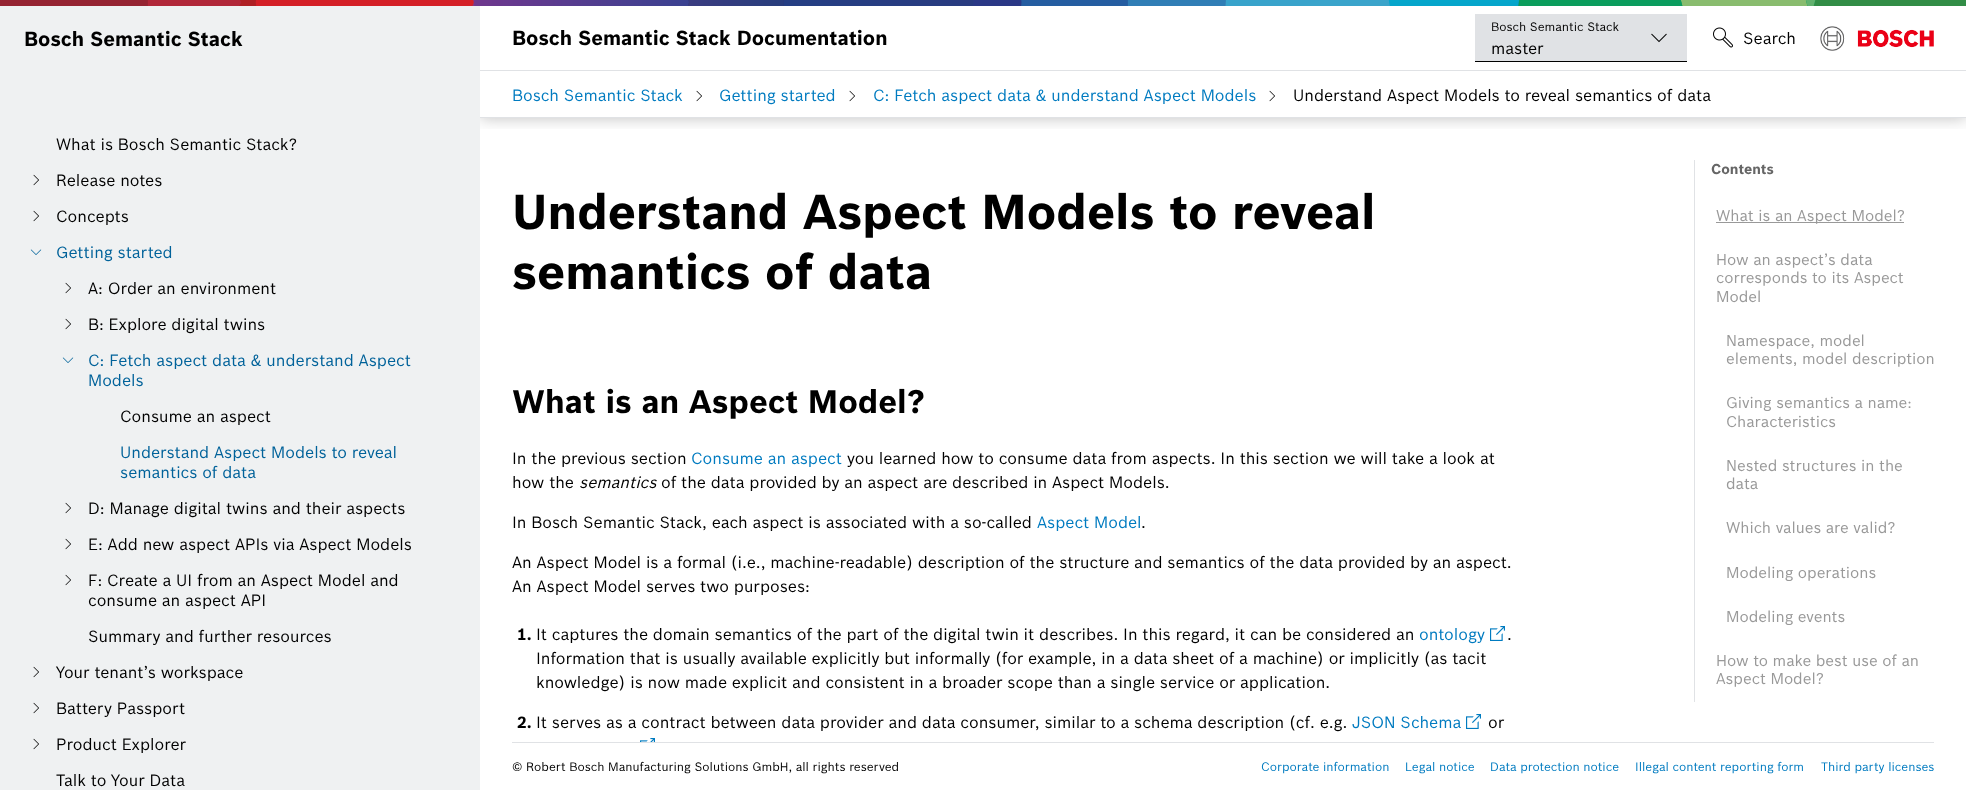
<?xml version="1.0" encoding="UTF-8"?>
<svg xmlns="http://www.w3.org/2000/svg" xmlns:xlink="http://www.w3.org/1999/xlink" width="1966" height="790">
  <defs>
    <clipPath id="clip1"><rect x="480" y="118" width="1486" height="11" /></clipPath>
  </defs>
  <rect width="100%" height="100%" fill="#ffffff" />
  <g clip-path="url(#clip1)">
    <rect x="480" y="70" width="1486" height="48" fill="#000000" fill-opacity="0.25" filter="blur(8px)" />
  </g>
  <rect x="480" y="56" width="1486" height="14" fill="#ffffff" />
  <rect x="1475" y="14" width="212" height="47" fill="#e0e2e5" />
  <rect x="1475" y="61" width="212" height="1" fill="#000000" />
  <image x="1651" y="33" width="16" height="10" xlink:href="image1.png" />
  <image x="1713" y="27" width="20" height="21" xlink:href="image2.png" />
  <image x="1820" y="26" width="114" height="25" xlink:href="image3.png" />
  <image x="0" y="0" width="1966" height="6" xlink:href="image4.png" />
  <rect y="6" width="480" height="784" fill="#eff1f2" />
  <image x="33" y="174" width="6" height="12" xlink:href="image5.png" />
  <image x="33" y="210" width="6" height="12" xlink:href="image5.png" />
  <image x="30" y="249" width="12" height="6" xlink:href="image6.png" />
  <image x="65" y="282" width="6" height="12" xlink:href="image5.png" />
  <image x="65" y="318" width="6" height="12" xlink:href="image5.png" />
  <image x="62" y="357" width="12" height="6" xlink:href="image6.png" />
  <image x="65" y="502" width="6" height="12" xlink:href="image5.png" />
  <image x="65" y="538" width="6" height="12" xlink:href="image5.png" />
  <image x="65" y="574" width="6" height="12" xlink:href="image5.png" />
  <image x="33" y="666" width="6" height="12" xlink:href="image5.png" />
  <image x="33" y="702" width="6" height="12" xlink:href="image5.png" />
  <image x="33" y="738" width="6" height="12" xlink:href="image5.png" />
  <rect x="480" y="70" width="1486" height="1" fill="#e0e2e5" />
  <rect x="480" y="117" width="1486" height="1" fill="#e0e2e5" />
  <image x="696" y="90" width="6" height="12" xlink:href="image7.png" />
  <image x="849" y="90" width="6" height="12" xlink:href="image7.png" />
  <image x="1269" y="90" width="6" height="12" xlink:href="image7.png" />
  <image x="1490" y="626" width="15" height="15" xlink:href="image8.png" />
  <image x="1466" y="714" width="15" height="15" xlink:href="image8.png" />
  <image x="640" y="738" width="15" height="4" xlink:href="image9.png" />
  <rect x="1694" y="160" width="1" height="542" fill="#e0e2e5" />
  <rect x="1716" y="222" width="188" height="1" fill="#999999" />
  <rect x="512" y="742" width="1422" height="1" fill="#e0e2e5" />
  <text x="512" y="45" style="font-family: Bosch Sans; font-size: 20px; font-weight: bold; fill: #000000">Bosch Semantic Stack Documentation</text>
  <text x="1491" y="31" style="font-family: Bosch Sans; font-size: 12px; fill: #000000">Bosch Semantic Stack</text>
  <text x="1491" y="54" style="font-family: Bosch Sans; font-size: 16px; fill: #000000">master</text>
  <text x="1743" y="44" style="font-family: Bosch Sans; font-size: 16px; fill: #000000">Search</text>
  <text x="24" y="46" style="font-family: Bosch Sans; font-size: 20px; font-weight: bold; fill: #000000">Bosch Semantic Stack</text>
  <text x="56" y="150" style="font-family: Bosch Sans; font-size: 16px; fill: #000000">What is Bosch Semantic Stack?</text>
  <text x="56" y="186" style="font-family: Bosch Sans; font-size: 16px; fill: #000000">Release notes</text>
  <text x="56" y="222" style="font-family: Bosch Sans; font-size: 16px; fill: #000000">Concepts</text>
  <text x="56" y="258" style="font-family: Bosch Sans; font-size: 16px; fill: #00629a">Getting started</text>
  <text x="88" y="294" style="font-family: Bosch Sans; font-size: 16px; fill: #000000">A: Order an environment</text>
  <text x="88" y="330" style="font-family: Bosch Sans; font-size: 16px; fill: #000000">B: Explore digital twins</text>
  <text x="88" y="366" style="font-family: Bosch Sans; font-size: 16px; fill: #00629a">C: Fetch aspect data &amp; understand Aspect</text>
  <text x="88" y="386" style="font-family: Bosch Sans; font-size: 16px; fill: #00629a">Models</text>
  <text x="120" y="422" style="font-family: Bosch Sans; font-size: 16px; fill: #000000">Consume an aspect</text>
  <text x="120" y="458" style="font-family: Bosch Sans; font-size: 16px; fill: #00629a">Understand Aspect Models to reveal</text>
  <text x="120" y="478" style="font-family: Bosch Sans; font-size: 16px; fill: #00629a">semantics of data</text>
  <text x="88" y="514" style="font-family: Bosch Sans; font-size: 16px; fill: #000000">D: Manage digital twins and their aspects</text>
  <text x="88" y="550" style="font-family: Bosch Sans; font-size: 16px; fill: #000000">E: Add new aspect APIs via Aspect Models</text>
  <text x="88" y="586" style="font-family: Bosch Sans; font-size: 16px; fill: #000000">F: Create a UI from an Aspect Model and</text>
  <text x="88" y="606" style="font-family: Bosch Sans; font-size: 16px; fill: #000000">consume an aspect API</text>
  <text x="88" y="642" style="font-family: Bosch Sans; font-size: 16px; fill: #000000">Summary and further resources</text>
  <text x="56" y="678" style="font-family: Bosch Sans; font-size: 16px; fill: #000000">Your tenant’s workspace</text>
  <text x="56" y="714" style="font-family: Bosch Sans; font-size: 16px; fill: #000000">Battery Passport</text>
  <text x="56" y="750" style="font-family: Bosch Sans; font-size: 16px; fill: #000000">Product Explorer</text>
  <text x="56" y="786" style="font-family: Bosch Sans; font-size: 16px; fill: #000000">Talk to Your Data</text>
  <text x="512" y="101" style="font-family: Bosch Sans; font-size: 16px; fill: #007bc0">Bosch Semantic Stack</text>
  <text x="719" y="101" style="font-family: Bosch Sans; font-size: 16px; fill: #007bc0">Getting started</text>
  <text x="873" y="101" style="font-family: Bosch Sans; font-size: 16px; fill: #007bc0">C: Fetch aspect data &amp; understand Aspect Models</text>
  <text x="1293" y="101" style="font-family: Bosch Sans; font-size: 16px; fill: #000000">Understand Aspect Models to reveal semantics of data</text>
  <text x="512" y="229" style="font-family: Bosch Sans; font-size: 48px; font-weight: bold; fill: #000000">Understand Aspect Models to reveal</text>
  <text x="512" y="289" style="font-family: Bosch Sans; font-size: 48px; font-weight: bold; fill: #000000">semantics of data</text>
  <text x="512" y="413" style="font-family: Bosch Sans; font-size: 32px; font-weight: bold; fill: #000000">What is an Aspect Model?</text>
  <text x="512" y="464" style="font-family: Bosch Sans; font-size: 16px; fill: #000000">In the previous section</text>
  <text x="691" y="464" style="font-family: Bosch Sans; font-size: 16px; fill: #007bc0">Consume an aspect</text>
  <text x="847" y="464" style="font-family: Bosch Sans; font-size: 16px; fill: #000000">you learned how to consume data from aspects. In this section we will take a look at</text>
  <text x="512" y="488" style="font-family: Bosch Sans; font-size: 16px; fill: #000000">how the</text>
  <text x="579" y="488" style="font-family: Bosch Sans; font-size: 16px; font-style: italic; fill: #000000">semantics</text>
  <text x="661" y="488" style="font-family: Bosch Sans; font-size: 16px; fill: #000000">of the data provided by an aspect are described in Aspect Models.</text>
  <text x="512" y="528" style="font-family: Bosch Sans; font-size: 16px; fill: #000000">In Bosch Semantic Stack, each aspect is associated with a so-called</text>
  <text x="1037" y="528" style="font-family: Bosch Sans; font-size: 16px; fill: #007bc0">Aspect Model</text>
  <text x="1141" y="528" style="font-family: Bosch Sans; font-size: 16px; fill: #000000">.</text>
  <text x="512" y="568" style="font-family: Bosch Sans; font-size: 16px; fill: #000000">An Aspect Model is a formal (i.e., machine-readable) description of the structure and semantics of the data provided by an aspect.</text>
  <text x="512" y="592" style="font-family: Bosch Sans; font-size: 16px; fill: #000000">An Aspect Model serves two purposes:</text>
  <text x="517" y="640" style="font-family: Bosch Sans; font-size: 16px; font-weight: bold; fill: #000000">1.</text>
  <text x="536" y="640" style="font-family: Bosch Sans; font-size: 16px; fill: #000000">It captures the domain semantics of the part of the digital twin it describes. In this regard, it can be considered an</text>
  <text x="1419" y="640" style="font-family: Bosch Sans; font-size: 16px; fill: #007bc0">ontology</text>
  <text x="1507" y="640" style="font-family: Bosch Sans; font-size: 16px; fill: #000000">.</text>
  <text x="536" y="664" style="font-family: Bosch Sans; font-size: 16px; fill: #000000">Information that is usually available explicitly but informally (for example, in a data sheet of a machine) or implicitly (as tacit</text>
  <text x="536" y="688" style="font-family: Bosch Sans; font-size: 16px; fill: #000000">knowledge) is now made explicit and consistent in a broader scope than a single service or application.</text>
  <text x="517" y="728" style="font-family: Bosch Sans; font-size: 16px; font-weight: bold; fill: #000000">2.</text>
  <text x="536" y="728" style="font-family: Bosch Sans; font-size: 16px; fill: #000000">It serves as a contract between data provider and data consumer, similar to a schema description (cf. e.g.</text>
  <text x="1352" y="728" style="font-family: Bosch Sans; font-size: 16px; fill: #007bc0">JSON Schema</text>
  <text x="1488" y="728" style="font-family: Bosch Sans; font-size: 16px; fill: #000000">or</text>
  <text x="1711" y="174" style="font-family: Bosch Sans; font-size: 14px; font-weight: bold; fill: #666666">Contents</text>
  <text x="1716" y="221" style="font-family: Bosch Sans; font-size: 15.25px; fill: #999999">What is an Aspect Model?</text>
  <text x="1716" y="265" style="font-family: Bosch Sans; font-size: 15.25px; fill: #999999">How an aspect’s data</text>
  <text x="1716" y="283" style="font-family: Bosch Sans; font-size: 15.25px; fill: #999999">corresponds to its Aspect</text>
  <text x="1716" y="302" style="font-family: Bosch Sans; font-size: 15.25px; fill: #999999">Model</text>
  <text x="1726" y="346" style="font-family: Bosch Sans; font-size: 15.25px; fill: #999999">Namespace, model</text>
  <text x="1726" y="364" style="font-family: Bosch Sans; font-size: 15.25px; fill: #999999">elements, model description</text>
  <text x="1726" y="408" style="font-family: Bosch Sans; font-size: 15.25px; fill: #999999">Giving semantics a name:</text>
  <text x="1726" y="427" style="font-family: Bosch Sans; font-size: 15.25px; fill: #999999">Characteristics</text>
  <text x="1726" y="471" style="font-family: Bosch Sans; font-size: 15.25px; fill: #999999">Nested structures in the</text>
  <text x="1726" y="489" style="font-family: Bosch Sans; font-size: 15.25px; fill: #999999">data</text>
  <text x="1726" y="533" style="font-family: Bosch Sans; font-size: 15.25px; fill: #999999">Which values are valid?</text>
  <text x="1726" y="578" style="font-family: Bosch Sans; font-size: 15.25px; fill: #999999">Modeling operations</text>
  <text x="1726" y="622" style="font-family: Bosch Sans; font-size: 15.25px; fill: #999999">Modeling events</text>
  <text x="1716" y="666" style="font-family: Bosch Sans; font-size: 15.25px; fill: #999999">How to make best use of an</text>
  <text x="1716" y="684" style="font-family: Bosch Sans; font-size: 15.25px; fill: #999999">Aspect Model?</text>
  <text x="512" y="771" style="font-family: Bosch Sans; font-size: 12px; fill: #000000">© Robert Bosch Manufacturing Solutions GmbH, all rights reserved</text>
  <text x="1261" y="771" style="font-family: Bosch Sans; font-size: 12px; fill: #007bc0">Corporate information</text>
  <text x="1405" y="771" style="font-family: Bosch Sans; font-size: 12px; fill: #007bc0">Legal notice</text>
  <text x="1490" y="771" style="font-family: Bosch Sans; font-size: 12px; fill: #007bc0">Data protection notice</text>
  <text x="1635" y="771" style="font-family: Bosch Sans; font-size: 12px; fill: #007bc0">Illegal content reporting form</text>
  <text x="1821" y="771" style="font-family: Bosch Sans; font-size: 12px; fill: #007bc0">Third party licenses</text>
</svg>
